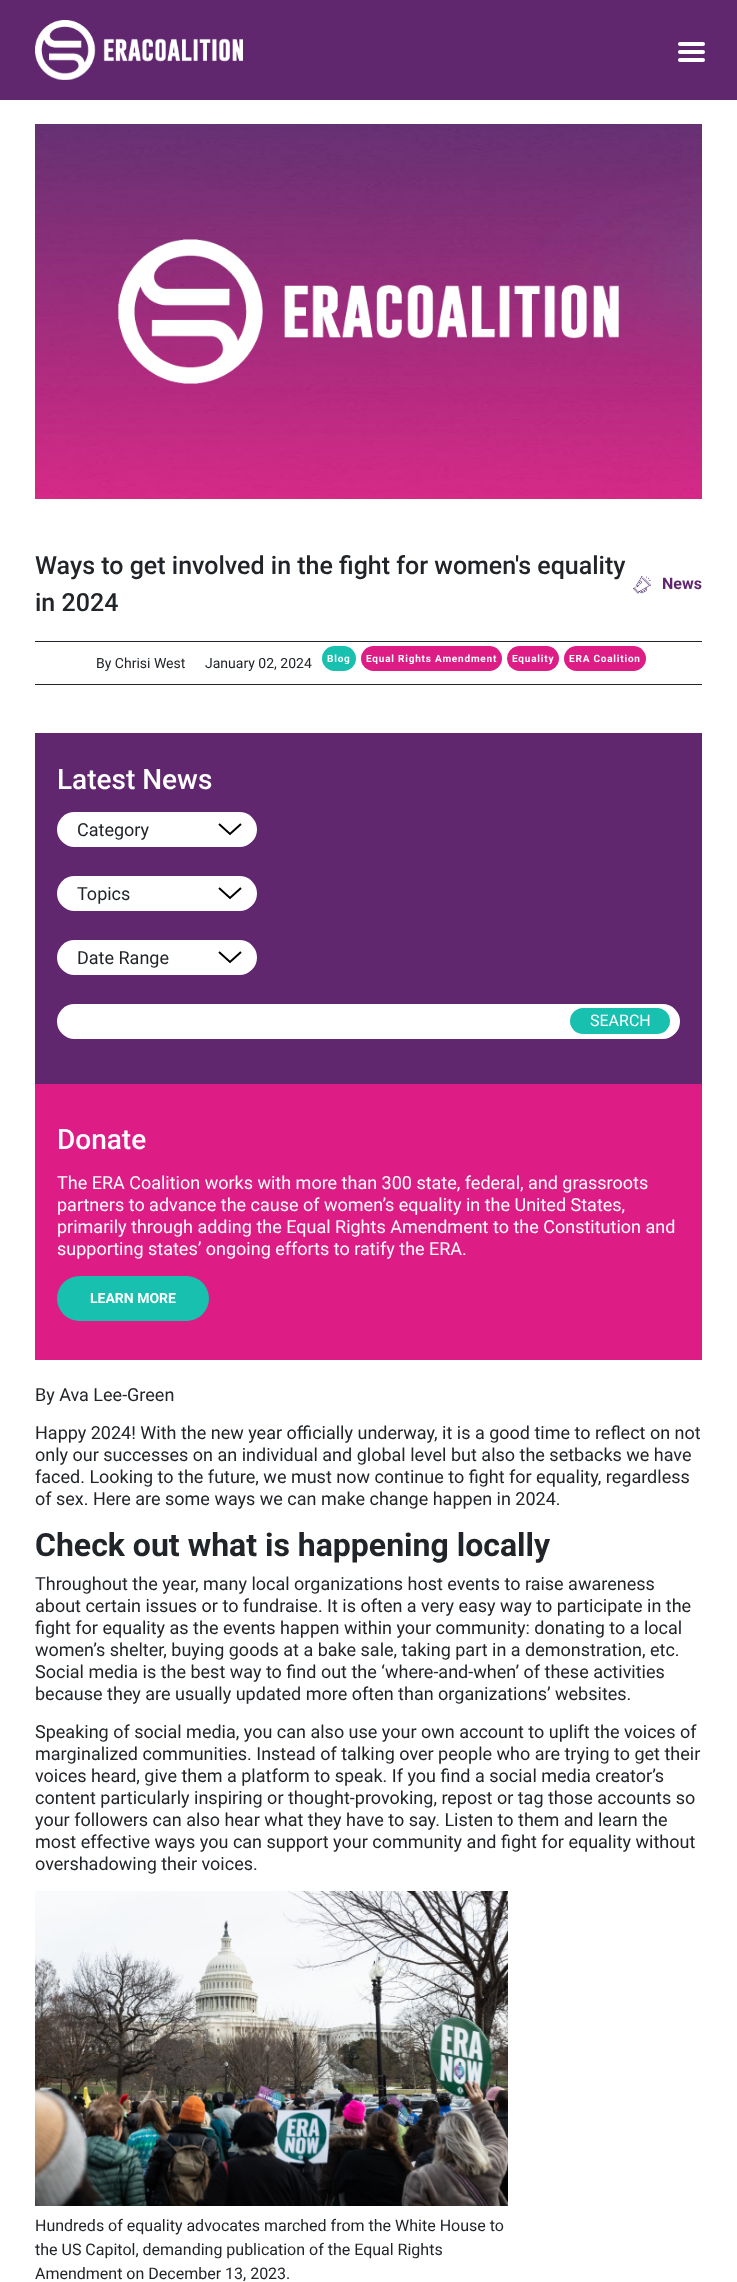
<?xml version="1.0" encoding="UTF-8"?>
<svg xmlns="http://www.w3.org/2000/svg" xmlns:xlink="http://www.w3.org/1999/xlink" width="737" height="2282">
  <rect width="100%" height="100%" fill="#ffffff" />
  <rect width="737" height="100" fill="#60276f" />
  <image x="35" y="20" width="208" height="60" xlink:href="image1.png" />
  <rect x="678" y="50" width="27" height="4" rx="2" fill="#ffffff" />
  <rect x="678" y="42" width="27" height="4" rx="2" fill="#ffffff" />
  <rect x="678" y="58" width="27" height="4" rx="2" fill="#ffffff" />
  <image x="35" y="124" width="667" height="375" xlink:href="image2.png" />
  <image x="633" y="576" width="18" height="18" xlink:href="image3.png" />
  <rect x="35" y="641" width="667" height="1" fill="#212529" />
  <rect x="35" y="684" width="667" height="1" fill="#212529" />
  <rect x="322" y="646" width="34" height="25" rx="12.5" fill="#17c0af" />
  <rect x="361" y="646" width="141" height="25" rx="12.5" fill="#dd1d85" />
  <rect x="507" y="646" width="52" height="25" rx="12.5" fill="#dd1d85" />
  <rect x="564" y="646" width="82" height="25" rx="12.5" fill="#dd1d85" />
  <rect x="35" y="733" width="667" height="351" fill="#60276f" />
  <rect x="57" y="812" width="200" height="35" rx="17.5" fill="#ffffff" />
  <path d="M 219 824 l 11 10 l 11 -10" fill="none" stroke="#000000" stroke-width="2" />
  <rect x="57" y="876" width="200" height="35" rx="17.5" fill="#ffffff" />
  <path d="M 219 888 l 11 10 l 11 -10" fill="none" stroke="#000000" stroke-width="2" />
  <rect x="57" y="940" width="200" height="35" rx="17.5" fill="#ffffff" />
  <path d="M 219 952 l 11 10 l 11 -10" fill="none" stroke="#000000" stroke-width="2" />
  <rect x="57" y="1004" width="623" height="35" rx="17.5" fill="#ffffff" />
  <rect x="570" y="1008" width="100" height="26" rx="13" fill="#17c0af" />
  <rect x="35" y="1084" width="667" height="276" fill="#dd1d85" />
  <rect x="57" y="1276" width="152" height="45" rx="22.5" fill="#17c0af" />
  <image x="35" y="1891" width="473" height="315" xlink:href="image4.png" />
  <text x="35" y="574" style="font-family: Roboto; font-size: 25px; font-weight: 500; fill: #212529">Ways to get involved in the fight for women's equality</text>
  <text x="35" y="611" style="font-family: Roboto; font-size: 25px; font-weight: 500; fill: #212529">in 2024</text>
  <text x="662" y="589" style="font-family: Roboto; font-size: 16px; font-weight: bold; fill: #602770">News</text>
  <text x="96" y="668" style="font-family: Roboto; font-size: 14px; fill: #212529">By Chrisi West</text>
  <text x="205" y="668" style="font-family: Roboto; font-size: 14px; fill: #212529">January 02, 2024</text>
  <text x="327" y="662" style="font-family: Roboto; font-size: 10px; font-weight: bold; letter-spacing: 0.8px; fill: #ffffff">Blog</text>
  <text x="366" y="662" style="font-family: Roboto; font-size: 10px; font-weight: bold; letter-spacing: 0.8px; fill: #ffffff">Equal Rights Amendment</text>
  <text x="512" y="662" style="font-family: Roboto; font-size: 10px; font-weight: bold; letter-spacing: 0.8px; fill: #ffffff">Equality</text>
  <text x="569" y="662" style="font-family: Roboto; font-size: 10px; font-weight: bold; letter-spacing: 0.8px; fill: #ffffff">ERA Coalition</text>
  <text x="57" y="789" style="font-family: Roboto; font-size: 28px; font-weight: 500; fill: #ffffff">Latest News</text>
  <text x="77" y="836" style="font-family: Roboto; font-size: 18px; fill: #212529">Category</text>
  <text x="77" y="900" style="font-family: Roboto; font-size: 18px; fill: #212529">Topics</text>
  <text x="77" y="964" style="font-family: Roboto; font-size: 18px; fill: #212529">Date Range</text>
  <text x="590" y="1026" style="font-family: Roboto; font-size: 16px; fill: #ffffff">SEARCH</text>
  <text x="57" y="1149" style="font-family: Roboto; font-size: 28px; font-weight: 500; fill: #ffffff">Donate</text>
  <text x="57" y="1189" style="font-family: Roboto; font-size: 18px; fill: #ffffff">The ERA Coalition works with more than 300 state, federal, and grassroots</text>
  <text x="57" y="1211" style="font-family: Roboto; font-size: 18px; fill: #ffffff">partners to advance the cause of women’s equality in the United States,</text>
  <text x="57" y="1233" style="font-family: Roboto; font-size: 18px; fill: #ffffff">primarily through adding the Equal Rights Amendment to the Constitution and</text>
  <text x="57" y="1255" style="font-family: Roboto; font-size: 18px; fill: #ffffff">supporting states’ ongoing efforts to ratify the ERA.</text>
  <text x="90" y="1303" style="font-family: Roboto; font-size: 14px; font-weight: bold; fill: #ffffff">LEARN MORE</text>
  <text x="35" y="1401" style="font-family: Roboto; font-size: 18px; fill: #212529">By Ava Lee-Green</text>
  <text x="35" y="1439" style="font-family: Roboto; font-size: 18px; fill: #212529">Happy 2024! With the new year officially underway, it is a good time to reflect on not</text>
  <text x="35" y="1461" style="font-family: Roboto; font-size: 18px; fill: #212529">only our successes on an individual and global level but also the setbacks we have</text>
  <text x="35" y="1483" style="font-family: Roboto; font-size: 18px; fill: #212529">faced. Looking to the future, we must now continue to fight for equality, regardless</text>
  <text x="35" y="1505" style="font-family: Roboto; font-size: 18px; fill: #212529">of sex. Here are some ways we can make change happen in 2024.</text>
  <text x="35" y="1556" style="font-family: Roboto; font-size: 32px; font-weight: bold; fill: #212529">Check out what is happening locally</text>
  <text x="35" y="1590" style="font-family: Roboto; font-size: 18px; fill: #212529">Throughout the year, many local organizations host events to raise awareness</text>
  <text x="35" y="1612" style="font-family: Roboto; font-size: 18px; fill: #212529">about certain issues or to fundraise. It is often a very easy way to participate in the</text>
  <text x="35" y="1634" style="font-family: Roboto; font-size: 18px; fill: #212529">fight for equality as the events happen within your community: donating to a local</text>
  <text x="35" y="1656" style="font-family: Roboto; font-size: 18px; fill: #212529">women’s shelter, buying goods at a bake sale, taking part in a demonstration, etc.</text>
  <text x="35" y="1678" style="font-family: Roboto; font-size: 18px; fill: #212529">Social media is the best way to find out the ‘where-and-when’ of these activities</text>
  <text x="35" y="1700" style="font-family: Roboto; font-size: 18px; fill: #212529">because they are usually updated more often than organizations’ websites.</text>
  <text x="35" y="1738" style="font-family: Roboto; font-size: 18px; fill: #212529">Speaking of social media, you can also use your own account to uplift the voices of</text>
  <text x="35" y="1760" style="font-family: Roboto; font-size: 18px; fill: #212529">marginalized communities. Instead of talking over people who are trying to get their</text>
  <text x="35" y="1782" style="font-family: Roboto; font-size: 18px; fill: #212529">voices heard, give them a platform to speak. If you find a social media creator’s</text>
  <text x="35" y="1804" style="font-family: Roboto; font-size: 18px; fill: #212529">content particularly inspiring or thought-provoking, repost or tag those accounts so</text>
  <text x="35" y="1826" style="font-family: Roboto; font-size: 18px; fill: #212529">your followers can also hear what they have to say. Listen to them and learn the</text>
  <text x="35" y="1848" style="font-family: Roboto; font-size: 18px; fill: #212529">most effective ways you can support your community and fight for equality without</text>
  <text x="35" y="1870" style="font-family: Roboto; font-size: 18px; fill: #212529">overshadowing their voices.</text>
  <text x="35" y="2231" style="font-family: Roboto; font-size: 16px; fill: #212529">Hundreds of equality advocates marched from the White House to</text>
  <text x="35" y="2255" style="font-family: Roboto; font-size: 16px; fill: #212529">the US Capitol, demanding publication of the Equal Rights</text>
  <text x="35" y="2279" style="font-family: Roboto; font-size: 16px; fill: #212529">Amendment on December 13, 2023.</text>
</svg>
